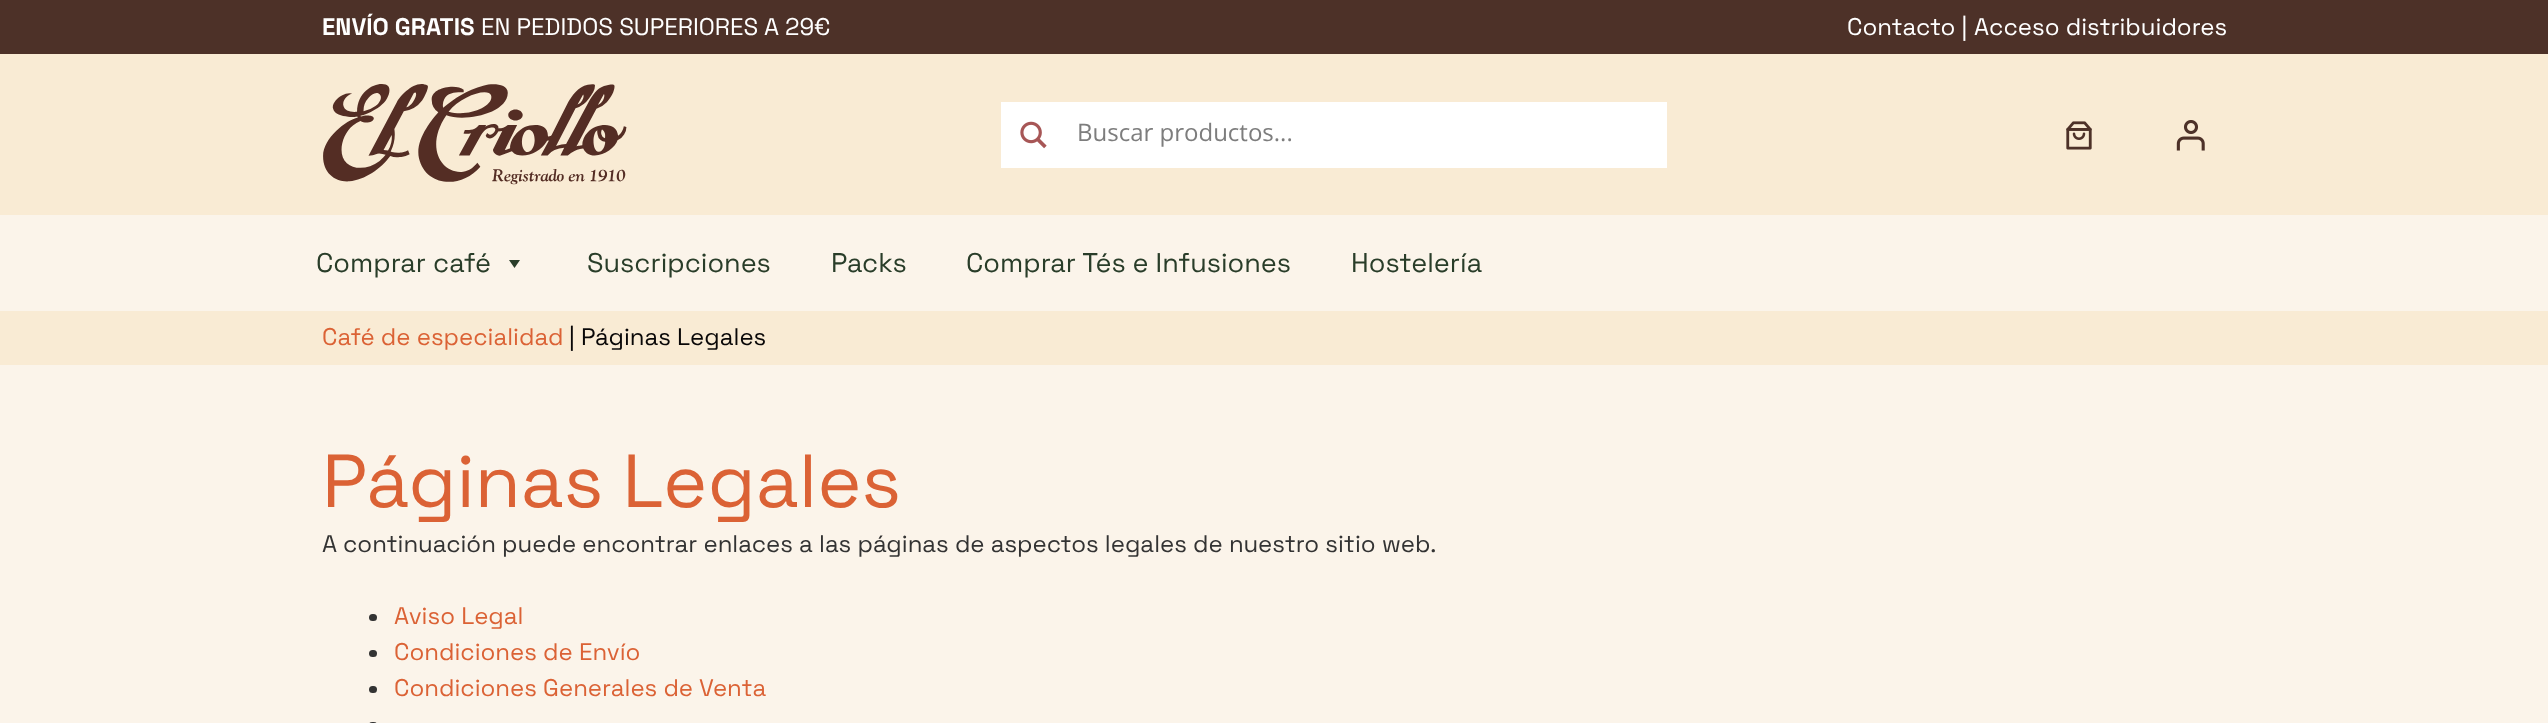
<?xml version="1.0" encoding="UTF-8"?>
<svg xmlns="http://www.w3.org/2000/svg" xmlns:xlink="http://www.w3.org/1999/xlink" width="2548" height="723">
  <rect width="100%" height="100%" fill="#fbf4ea" />
  <rect width="2548" height="54" fill="#4d3128" />
  <rect y="54" width="2548" height="161" fill="#f9ebd4" />
  <image x="323" y="84" width="304" height="101" xlink:href="image1.png" />
  <rect x="1001" y="102" width="666" height="66" fill="#ffffff" />
  <image x="1020" y="121" width="27" height="28" xlink:href="image2.png" />
  <image x="2066" y="121" width="26" height="29" xlink:href="image3.png" />
  <image x="2176" y="120" width="29" height="31" xlink:href="image4.png" />
  <path d="M 520 260 l -5.5 8 l -5.5 -8 z" fill="#293d29" />
  <rect y="311" width="2548" height="54" fill="#f9ebd4" />
  <rect x="369" y="614" width="8" height="7" rx="3.5" fill="#333333" />
  <rect x="369" y="650" width="8" height="7" rx="3.5" fill="#333333" />
  <rect x="369" y="686" width="8" height="7" rx="3.5" fill="#333333" />
  <rect x="369" y="722" width="8" height="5" rx="3.5" fill="#333333" />
  <text x="322" y="35" style="font-family: Space Grotesk; font-size: 24px; font-weight: bold; fill: #ffffff">ENVÍO GRATIS</text>
  <text x="481" y="35" style="font-family: Space Grotesk; font-size: 24px; fill: #ffffff">EN PEDIDOS SUPERIORES A 29€</text>
  <text x="1847" y="35" style="font-family: Space Grotesk; font-size: 24px; fill: #ffffff">Contacto |</text>
  <text x="1974" y="35" style="font-family: Space Grotesk; font-size: 24px; fill: #ffffff">Acceso distribuidores</text>
  <text x="1077" y="141" style="font-family: Open Sans; font-size: 24px; fill: #7d7d7d">Buscar productos...</text>
  <text x="316" y="272" style="font-family: Space Grotesk; font-size: 27px; fill: #293d29">Comprar café</text>
  <text x="587" y="272" style="font-family: Space Grotesk; font-size: 27px; fill: #293d29">Suscripciones</text>
  <text x="831" y="272" style="font-family: Space Grotesk; font-size: 27px; fill: #293d29">Packs</text>
  <text x="966" y="272" style="font-family: Space Grotesk; font-size: 27px; fill: #293d29">Comprar Tés e Infusiones</text>
  <text x="1351" y="272" style="font-family: Space Grotesk; font-size: 27px; fill: #293d29">Hostelería</text>
  <text x="322" y="345" style="font-family: Space Grotesk; font-size: 24px; fill: #db6235">Café de especialidad</text>
  <text x="569" y="345" style="font-family: Space Grotesk; font-size: 24px; fill: #090707">| Páginas Legales</text>
  <text x="322" y="507" style="font-family: Space Grotesk; font-size: 75px; fill: #db6235">Páginas Legales</text>
  <text x="322" y="552" style="font-family: Space Grotesk; font-size: 24px; fill: #333333">A continuación puede encontrar enlaces a las páginas de aspectos legales de nuestro sitio web.</text>
  <text x="394" y="624" style="font-family: Space Grotesk; font-size: 24px; fill: #db6235">Aviso Legal</text>
  <text x="394" y="660" style="font-family: Space Grotesk; font-size: 24px; fill: #db6235">Condiciones de Envío</text>
  <text x="394" y="696" style="font-family: Space Grotesk; font-size: 24px; fill: #db6235">Condiciones Generales de Venta</text>
</svg>
